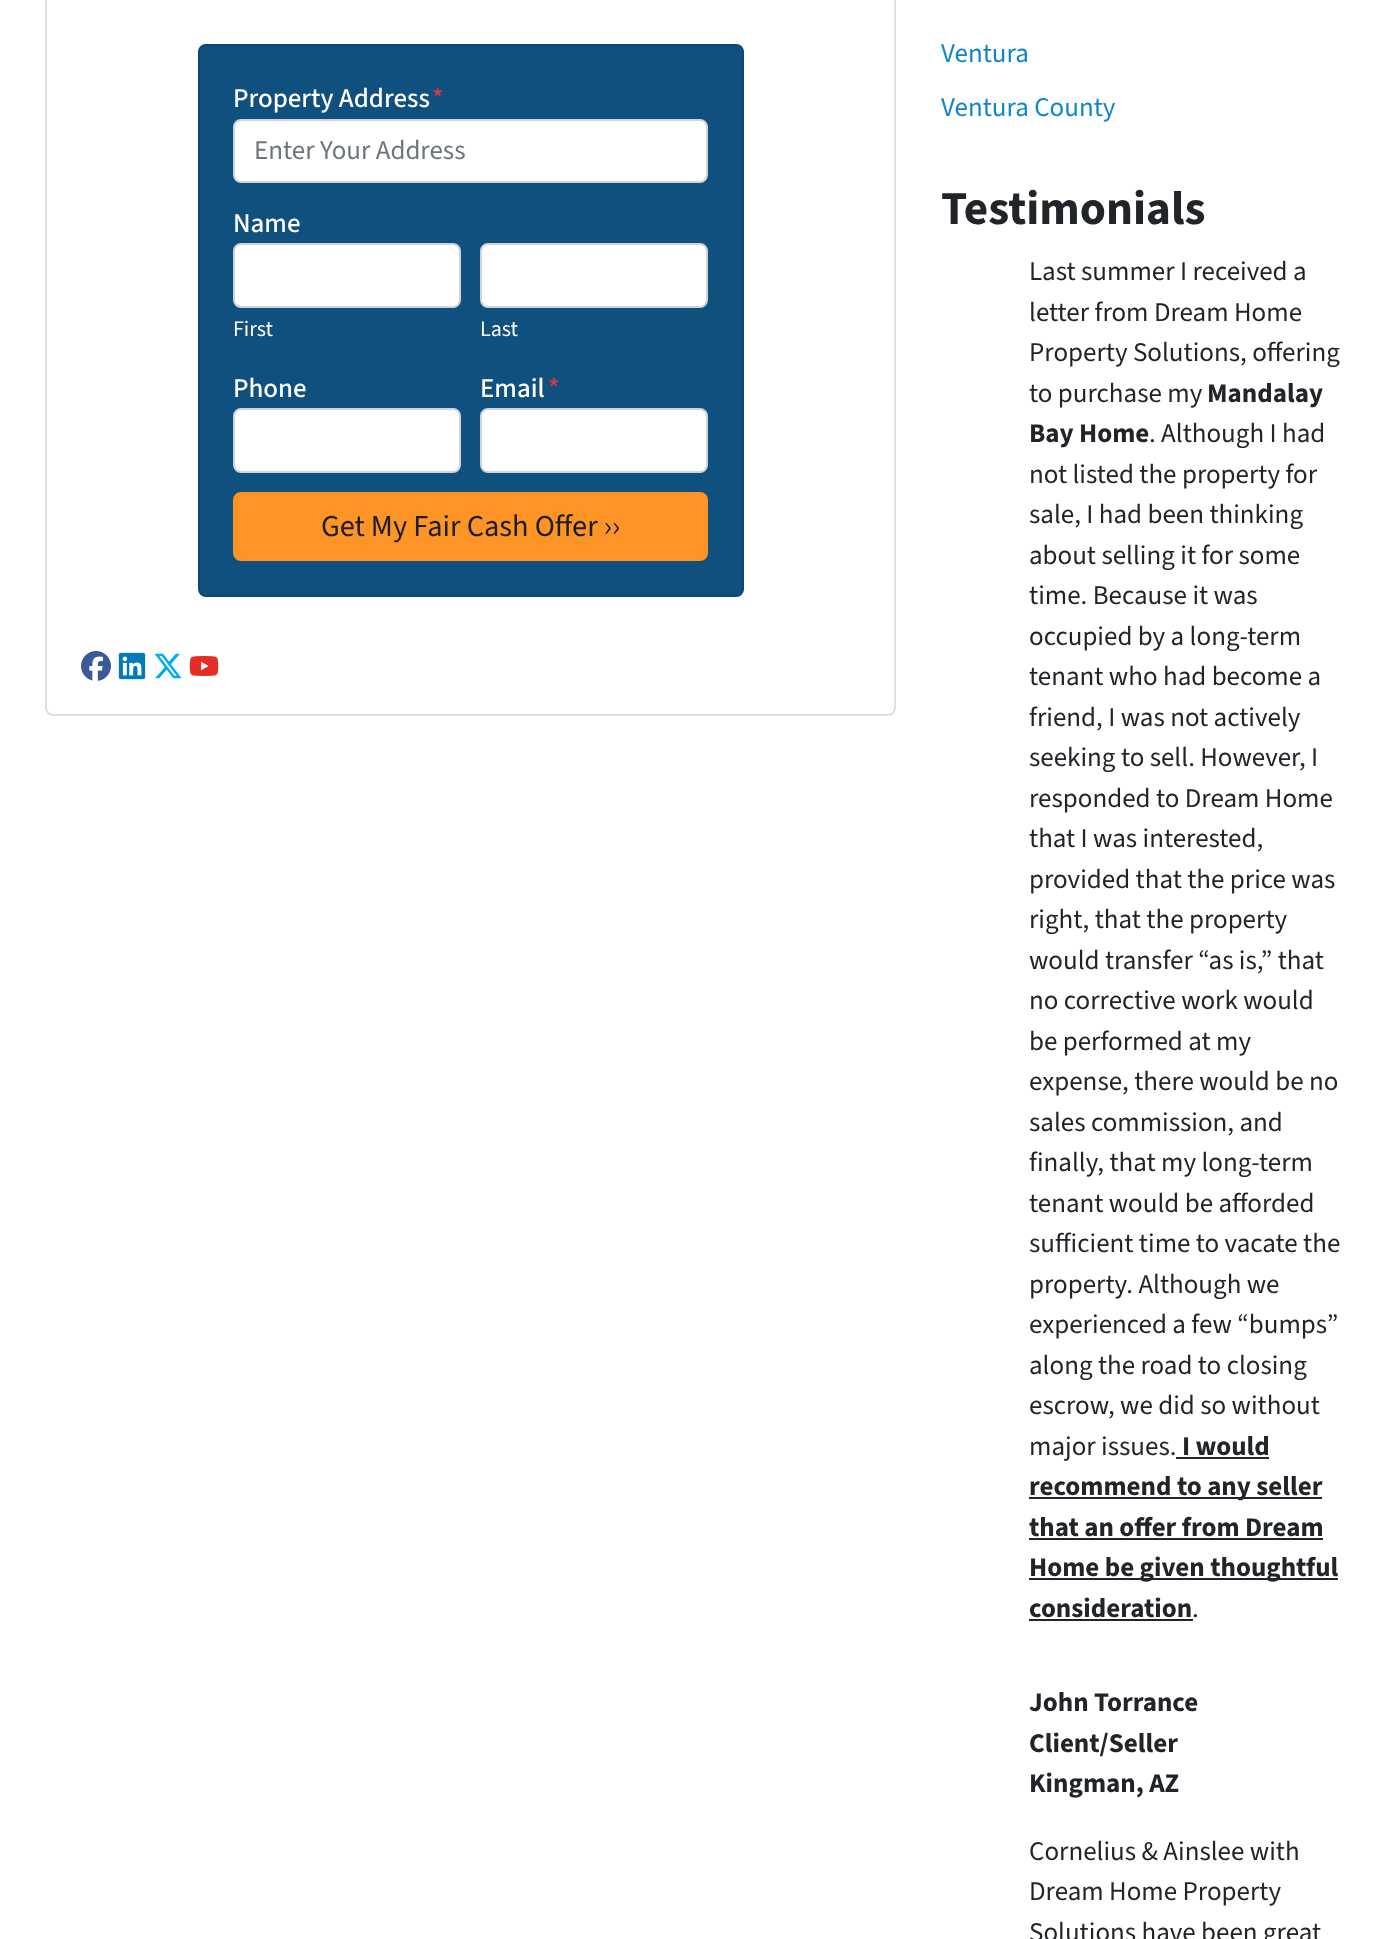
<?xml version="1.0" encoding="UTF-8"?>
<svg xmlns="http://www.w3.org/2000/svg" xmlns:xlink="http://www.w3.org/1999/xlink" width="1388" height="1939">
  <rect width="100%" height="100%" fill="#ffffff" />
  <rect x="46" y="-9" width="849" height="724" rx="7" fill="none" stroke="#dfdfdf" stroke-width="2" />
  <rect x="198" y="44" width="546" height="553" rx="8" fill="#10507e" />
  <rect x="199" y="45" width="544" height="551" rx="7" fill="none" stroke="#000000" stroke-opacity="0.12" stroke-width="2" />
  <rect x="234" y="120" width="473" height="62" rx="7" fill="#ffffff" stroke="#ced4da" stroke-width="2" />
  <rect x="234" y="244" width="226" height="63" rx="7" fill="#ffffff" stroke="#ced4da" stroke-width="2" />
  <rect x="481" y="244" width="226" height="63" rx="7" fill="#ffffff" stroke="#ced4da" stroke-width="2" />
  <rect x="234" y="409" width="226" height="63" rx="7" fill="#ffffff" stroke="#ced4da" stroke-width="2" />
  <rect x="481" y="409" width="226" height="63" rx="7" fill="#ffffff" stroke="#ced4da" stroke-width="2" />
  <rect x="234" y="493" width="473" height="67" rx="7" fill="#fc9426" stroke="#fc9426" stroke-width="2" />
  <image x="81" y="651" width="30" height="30" xlink:href="image1.png" />
  <image x="118" y="652" width="28" height="28" xlink:href="image2.png" />
  <image x="154" y="653" width="28" height="26" xlink:href="image3.png" />
  <image x="189" y="656" width="30" height="20" xlink:href="image4.png" />
  <rect x="1176" y="1457" width="93" height="2" fill="#212529" />
  <rect x="1029" y="1497" width="293" height="2" fill="#212529" />
  <rect x="1029" y="1538" width="294" height="2" fill="#212529" />
  <rect x="1029" y="1578" width="309" height="2" fill="#212529" />
  <rect x="1029" y="1619" width="164" height="2" fill="#212529" />
  <text x="233" y="107" style="font-family: 'Source Sans 3'; font-size: 27px; font-weight: 500; fill: #ffffff">Property Address</text>
  <text x="432" y="107" style="font-family: 'Source Sans 3'; font-size: 27px; font-weight: 500; fill: #dc3545">*</text>
  <text x="254" y="159" style="font-family: 'Source Sans 3'; font-size: 27px; fill: #6c757d">Enter Your Address</text>
  <text x="233" y="232" style="font-family: 'Source Sans 3'; font-size: 27px; font-weight: 500; fill: #ffffff">Name</text>
  <text x="233" y="336" style="font-family: 'Source Sans 3'; font-size: 22px; fill: #ffffff">First</text>
  <text x="480" y="336" style="font-family: 'Source Sans 3'; font-size: 22px; fill: #ffffff">Last</text>
  <text x="233" y="397" style="font-family: 'Source Sans 3'; font-size: 27px; font-weight: 500; fill: #ffffff">Phone</text>
  <text x="480" y="397" style="font-family: 'Source Sans 3'; font-size: 27px; font-weight: 500; fill: #ffffff">Email</text>
  <text x="548" y="397" style="font-family: 'Source Sans 3'; font-size: 27px; font-weight: 500; fill: #dc3545">*</text>
  <text x="321" y="536" style="font-family: 'Source Sans 3'; font-size: 30.4px; fill: #1d1d1d">Get My Fair Cash Offer ››</text>
  <text x="941" y="62" style="font-family: 'Source Sans 3'; font-size: 27px; fill: #1085ce">Ventura</text>
  <text x="941" y="116" style="font-family: 'Source Sans 3'; font-size: 27px; fill: #1085ce">Ventura County</text>
  <text x="941" y="224" style="font-family: 'Source Sans 3'; font-size: 47.25px; font-weight: bold; fill: #212529">Testimonials</text>
  <text x="1029" y="280" style="font-family: 'Source Sans 3'; font-size: 27px; fill: #212529">Last summer I received a</text>
  <text x="1029" y="321" style="font-family: 'Source Sans 3'; font-size: 27px; fill: #212529">letter from Dream Home</text>
  <text x="1029" y="361" style="font-family: 'Source Sans 3'; font-size: 27px; fill: #212529">Property Solutions, offering</text>
  <text x="1029" y="402" style="font-family: 'Source Sans 3'; font-size: 27px; fill: #212529">to purchase my</text>
  <text x="1207" y="402" style="font-family: 'Source Sans 3'; font-size: 27px; font-weight: bold; fill: #212529">Mandalay</text>
  <text x="1029" y="442" style="font-family: 'Source Sans 3'; font-size: 27px; font-weight: bold; fill: #212529">Bay Home</text>
  <text x="1149" y="442" style="font-family: 'Source Sans 3'; font-size: 27px; fill: #212529">. Although I had</text>
  <text x="1029" y="483" style="font-family: 'Source Sans 3'; font-size: 27px; fill: #212529">not listed the property for</text>
  <text x="1029" y="523" style="font-family: 'Source Sans 3'; font-size: 27px; fill: #212529">sale, I had been thinking</text>
  <text x="1029" y="564" style="font-family: 'Source Sans 3'; font-size: 27px; fill: #212529">about selling it for some</text>
  <text x="1029" y="604" style="font-family: 'Source Sans 3'; font-size: 27px; fill: #212529">time. Because it was</text>
  <text x="1029" y="645" style="font-family: 'Source Sans 3'; font-size: 27px; fill: #212529">occupied by a long-term</text>
  <text x="1029" y="685" style="font-family: 'Source Sans 3'; font-size: 27px; fill: #212529">tenant who had become a</text>
  <text x="1029" y="726" style="font-family: 'Source Sans 3'; font-size: 27px; fill: #212529">friend, I was not actively</text>
  <text x="1029" y="766" style="font-family: 'Source Sans 3'; font-size: 27px; fill: #212529">seeking to sell. However, I</text>
  <text x="1029" y="807" style="font-family: 'Source Sans 3'; font-size: 27px; fill: #212529">responded to Dream Home</text>
  <text x="1029" y="847" style="font-family: 'Source Sans 3'; font-size: 27px; fill: #212529">that I was interested,</text>
  <text x="1029" y="888" style="font-family: 'Source Sans 3'; font-size: 27px; fill: #212529">provided that the price was</text>
  <text x="1029" y="928" style="font-family: 'Source Sans 3'; font-size: 27px; fill: #212529">right, that the property</text>
  <text x="1029" y="969" style="font-family: 'Source Sans 3'; font-size: 27px; fill: #212529">would transfer “as is,” that</text>
  <text x="1029" y="1009" style="font-family: 'Source Sans 3'; font-size: 27px; fill: #212529">no corrective work would</text>
  <text x="1029" y="1050" style="font-family: 'Source Sans 3'; font-size: 27px; fill: #212529">be performed at my</text>
  <text x="1029" y="1090" style="font-family: 'Source Sans 3'; font-size: 27px; fill: #212529">expense, there would be no</text>
  <text x="1029" y="1131" style="font-family: 'Source Sans 3'; font-size: 27px; fill: #212529">sales commission, and</text>
  <text x="1029" y="1171" style="font-family: 'Source Sans 3'; font-size: 27px; fill: #212529">finally, that my long-term</text>
  <text x="1029" y="1212" style="font-family: 'Source Sans 3'; font-size: 27px; fill: #212529">tenant would be afforded</text>
  <text x="1029" y="1252" style="font-family: 'Source Sans 3'; font-size: 27px; fill: #212529">sufficient time to vacate the</text>
  <text x="1029" y="1293" style="font-family: 'Source Sans 3'; font-size: 27px; fill: #212529">property. Although we</text>
  <text x="1029" y="1333" style="font-family: 'Source Sans 3'; font-size: 27px; fill: #212529">experienced a few “bumps”</text>
  <text x="1029" y="1374" style="font-family: 'Source Sans 3'; font-size: 27px; fill: #212529">along the road to closing</text>
  <text x="1029" y="1414" style="font-family: 'Source Sans 3'; font-size: 27px; fill: #212529">escrow, we did so without</text>
  <text x="1029" y="1455" style="font-family: 'Source Sans 3'; font-size: 27px; fill: #212529">major issues.</text>
  <text x="1182" y="1455" style="font-family: 'Source Sans 3'; font-size: 27px; font-weight: bold; fill: #212529">I would</text>
  <text x="1029" y="1495" style="font-family: 'Source Sans 3'; font-size: 27px; font-weight: bold; fill: #212529">recommend to any seller</text>
  <text x="1029" y="1536" style="font-family: 'Source Sans 3'; font-size: 27px; font-weight: bold; fill: #212529">that an offer from Dream</text>
  <text x="1029" y="1576" style="font-family: 'Source Sans 3'; font-size: 27px; font-weight: bold; fill: #212529">Home be given thoughtful</text>
  <text x="1029" y="1617" style="font-family: 'Source Sans 3'; font-size: 27px; font-weight: bold; fill: #212529">consideration</text>
  <text x="1192" y="1617" style="font-family: 'Source Sans 3'; font-size: 27px; fill: #212529">.</text>
  <text x="1029" y="1711" style="font-family: 'Source Sans 3'; font-size: 27px; font-weight: bold; fill: #212529">John Torrance</text>
  <text x="1029" y="1752" style="font-family: 'Source Sans 3'; font-size: 27px; font-weight: bold; fill: #212529">Client/Seller</text>
  <text x="1029" y="1792" style="font-family: 'Source Sans 3'; font-size: 27px; font-weight: bold; fill: #212529">Kingman, AZ</text>
  <text x="1029" y="1860" style="font-family: 'Source Sans 3'; font-size: 27px; fill: #212529">Cornelius &amp; Ainslee with</text>
  <text x="1029" y="1900" style="font-family: 'Source Sans 3'; font-size: 27px; fill: #212529">Dream Home Property</text>
  <text x="1029" y="1941" style="font-family: 'Source Sans 3'; font-size: 27px; fill: #212529">Solutions have been great</text>
</svg>
